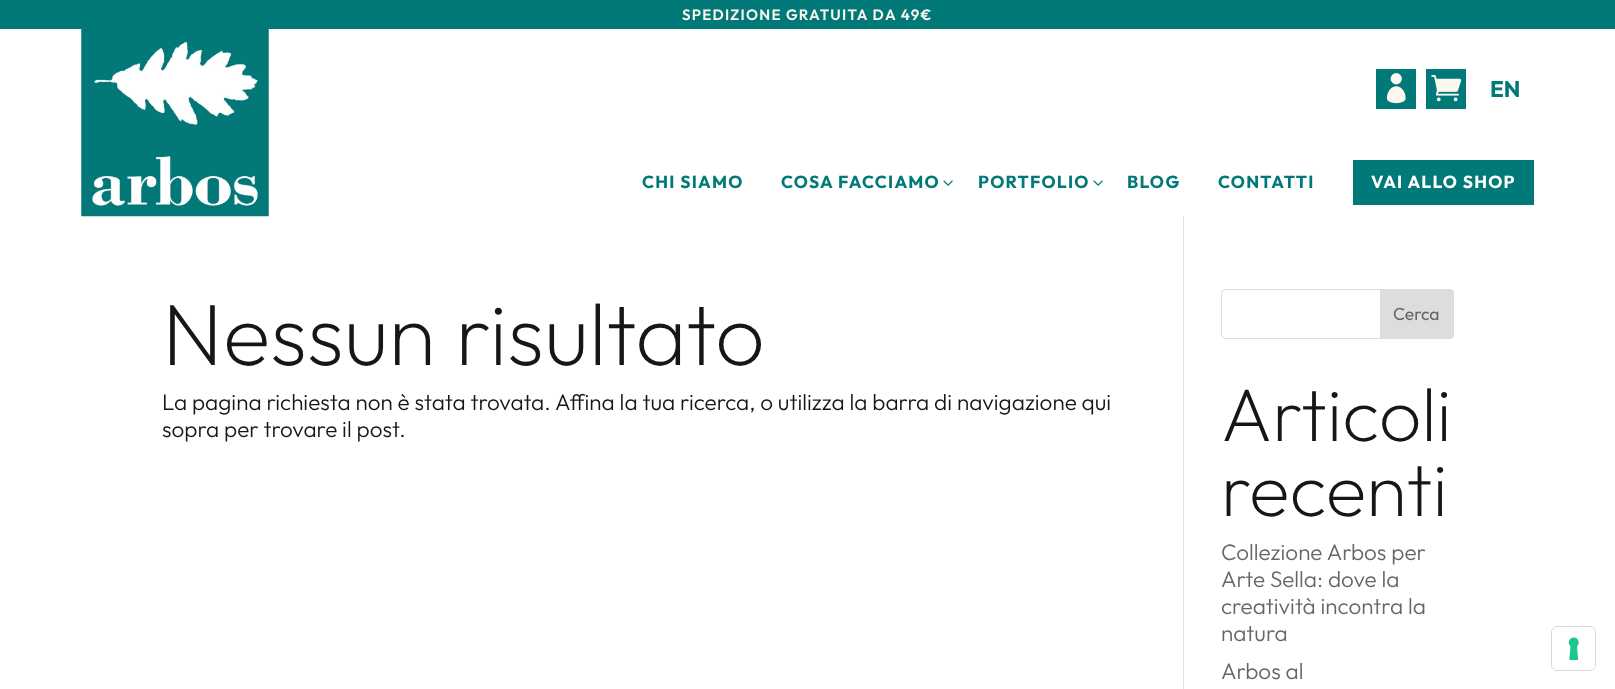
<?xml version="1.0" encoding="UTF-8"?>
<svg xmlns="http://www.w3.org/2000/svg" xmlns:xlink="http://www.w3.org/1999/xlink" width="1615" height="689">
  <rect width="100%" height="100%" fill="#ffffff" />
  <rect width="1615" height="29" fill="#007978" />
  <image x="81" y="29" width="188" height="188" xlink:href="image1.png" />
  <rect x="1376" y="69" width="40" height="40" fill="#007978" />
  <image x="1386" y="73" width="20" height="31" xlink:href="image2.png" />
  <rect x="1426" y="69" width="40" height="40" fill="#007978" />
  <image x="1431" y="75" width="31" height="27" xlink:href="image3.png" />
  <image x="943" y="180" width="10" height="6" xlink:href="image4.png" />
  <image x="1093" y="180" width="10" height="6" xlink:href="image4.png" />
  <rect x="1353" y="160" width="181" height="45" fill="#007978" />
  <rect x="1183" y="216" width="1" height="473" fill="#e2e2e2" />
  <rect x="1221.5" y="289.5" width="232" height="49" rx="3.5" fill="none" stroke="#dddddd" />
  <path d="M 1380.5 289.5 h 69.5 c 2 0 3.5 1.5 3.5 3.5 v 42 c 0 2 -1.5 3.5 -3.5 3.5 h -69.5 z" fill="#dddddd" stroke="#dddddd" />
  <rect x="1551.5" y="626.5" width="44" height="44" rx="5.5" fill="none" stroke="#d9d9d9" />
  <rect x="1553" y="628" width="42" height="42" rx="5" fill="#ffffff" />
  <image x="1568" y="637" width="11" height="23" xlink:href="image5.png" />
  <text x="682" y="20" style="font-family: 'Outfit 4'; font-size: 15px; font-weight: 100; letter-spacing: 1.25px; fill: #fcf8ef">SPEDIZIONE GRATUITA DA 49€</text>
  <text x="1490" y="97" style="font-family: 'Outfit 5'; font-size: 22.5px; font-weight: 100; fill: #007978">EN</text>
  <text x="642" y="188" style="font-family: 'Outfit 5'; font-size: 17.5px; font-weight: 100; letter-spacing: 1.25px; fill: #007978">CHI SIAMO</text>
  <text x="781" y="188" style="font-family: 'Outfit 5'; font-size: 17.5px; font-weight: 100; letter-spacing: 1.25px; fill: #007978">COSA FACCIAMO</text>
  <text x="978" y="188" style="font-family: 'Outfit 5'; font-size: 17.5px; font-weight: 100; letter-spacing: 1.25px; fill: #007978">PORTFOLIO</text>
  <text x="1127" y="188" style="font-family: 'Outfit 5'; font-size: 17.5px; font-weight: 100; letter-spacing: 1.25px; fill: #007978">BLOG</text>
  <text x="1218" y="188" style="font-family: 'Outfit 5'; font-size: 17.5px; font-weight: 100; letter-spacing: 1.25px; fill: #007978">CONTATTI</text>
  <text x="1371" y="188" style="font-family: 'Outfit 5'; font-size: 17.5px; font-weight: 100; letter-spacing: 1.25px; fill: #ffffff">VAI ALLO SHOP</text>
  <text x="162" y="365" style="font-family: Outfit; font-size: 87.5px; font-weight: 100; fill: #161616">Nessun risultato</text>
  <text x="162" y="410" style="font-family: 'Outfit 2'; font-size: 22.5px; font-weight: 100; fill: #161616">La pagina richiesta non è stata trovata. Affina la tua ricerca, o utilizza la barra di navigazione qui</text>
  <text x="162" y="437" style="font-family: 'Outfit 2'; font-size: 22.5px; font-weight: 100; fill: #161616">sopra per trovare il post.</text>
  <text x="1393" y="320" style="font-family: 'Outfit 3'; font-size: 17.5px; font-weight: 100; fill: #666666">Cerca</text>
  <text x="1221" y="441" style="font-family: Outfit; font-size: 75px; font-weight: 100; fill: #161616">Articoli</text>
  <text x="1221" y="516" style="font-family: Outfit; font-size: 75px; font-weight: 100; fill: #161616">recenti</text>
  <text x="1221" y="560" style="font-family: 'Outfit 2'; font-size: 22.5px; font-weight: 100; fill: #666666">Collezione Arbos per</text>
  <text x="1221" y="587" style="font-family: 'Outfit 2'; font-size: 22.5px; font-weight: 100; fill: #666666">Arte Sella: dove la</text>
  <text x="1221" y="614" style="font-family: 'Outfit 2'; font-size: 22.5px; font-weight: 100; fill: #666666">creatività incontra la</text>
  <text x="1221" y="641" style="font-family: 'Outfit 2'; font-size: 22.5px; font-weight: 100; fill: #666666">natura</text>
  <text x="1221" y="679" style="font-family: 'Outfit 2'; font-size: 22.5px; font-weight: 100; fill: #666666">Arbos al</text>
</svg>
